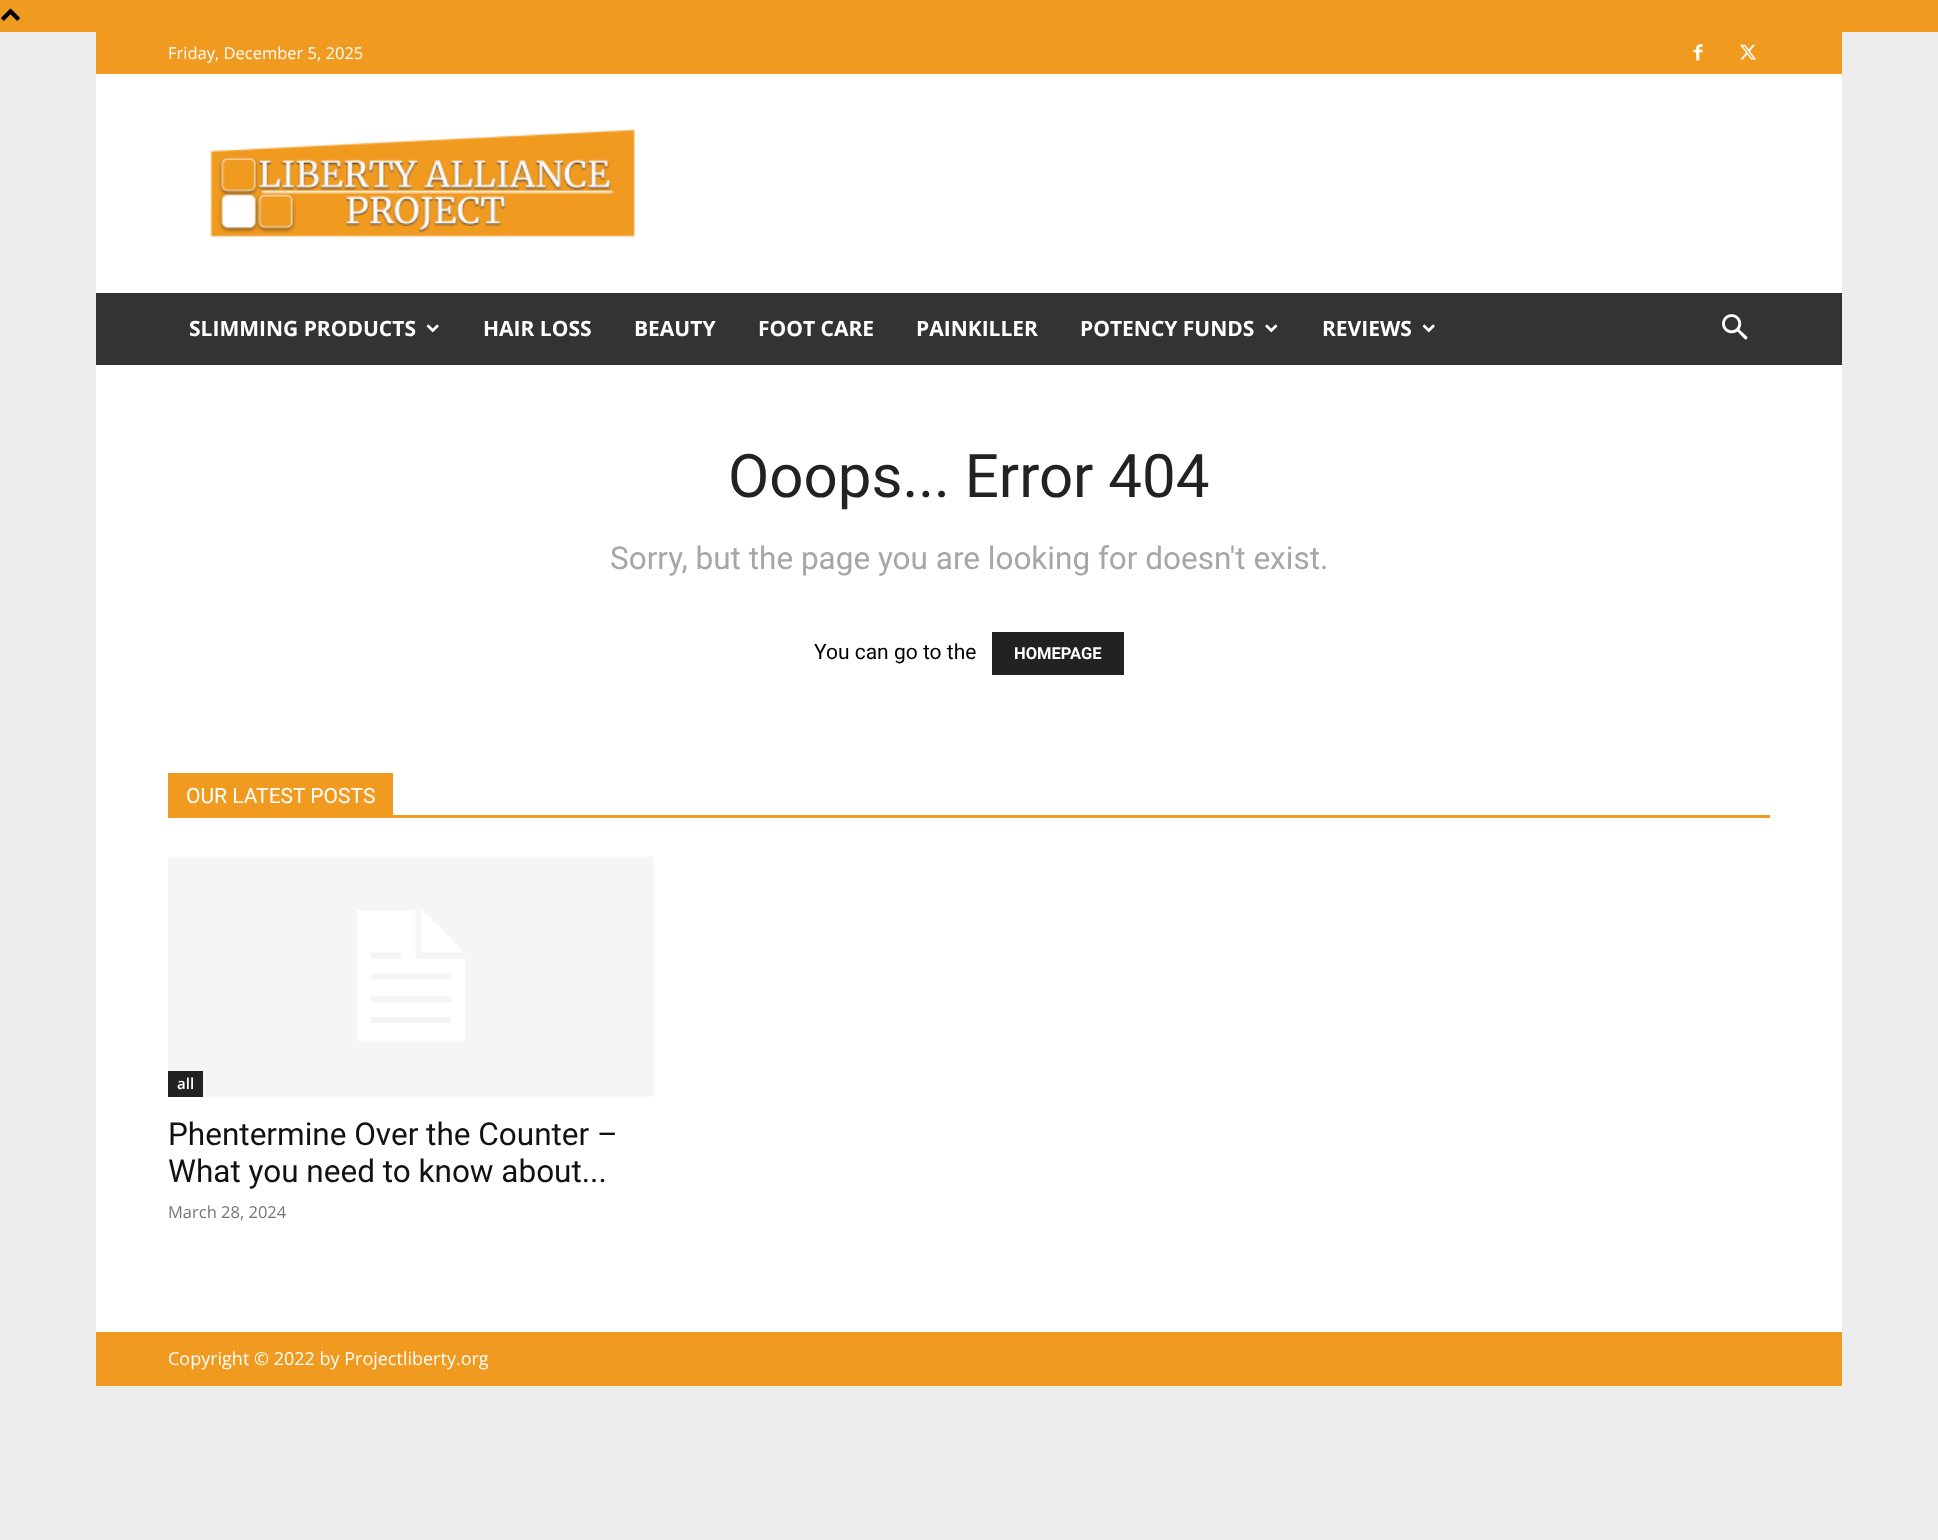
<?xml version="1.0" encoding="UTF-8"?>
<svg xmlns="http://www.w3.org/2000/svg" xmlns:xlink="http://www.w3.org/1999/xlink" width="1938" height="1540">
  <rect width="100%" height="100%" fill="#ededed" />
  <rect width="1938" height="32" fill="#f09a1f" />
  <image x="1" y="8" width="19" height="13" xlink:href="image1.png" />
  <rect x="96" y="32" width="1746" height="42" fill="#f09a1f" />
  <image x="1693" y="44" width="10" height="17" xlink:href="image2.png" />
  <image x="1740" y="44" width="16" height="16" xlink:href="image3.png" />
  <rect x="96" y="74" width="1746" height="219" fill="#ffffff" />
  <image x="210" y="129" width="425" height="108" xlink:href="image4.png" />
  <rect x="96" y="293" width="1746" height="72" fill="#333333" />
  <image x="426" y="324" width="13" height="9" xlink:href="image5.png" />
  <image x="1265" y="324" width="13" height="9" xlink:href="image6.png" />
  <image x="1422" y="324" width="13" height="9" xlink:href="image5.png" />
  <image x="1722" y="314" width="26" height="26" xlink:href="image7.png" />
  <rect x="96" y="365" width="1746" height="967" fill="#ffffff" />
  <rect x="992" y="632" width="132" height="43" fill="#222222" />
  <rect x="168" y="815" width="1602" height="3" fill="#f09a1f" />
  <rect x="168" y="773" width="225" height="42" fill="#f09a1f" />
  <image x="168" y="856" width="486" height="241" xlink:href="image8.png" />
  <rect x="168" y="1071" width="35" height="26" fill="#222222" />
  <rect x="96" y="1332" width="1746" height="54" fill="#f09a1f" />
  <text x="168" y="59" style="font-family: Open Sans; font-size: 16.5px; fill: #ffffff">Friday, December 5, 2025</text>
  <text x="189" y="336" style="font-family: Open Sans; font-size: 21px; font-weight: bold; fill: #ffffff">SLIMMING PRODUCTS</text>
  <text x="483" y="336" style="font-family: Open Sans; font-size: 21px; font-weight: bold; fill: #ffffff">HAIR LOSS</text>
  <text x="634" y="336" style="font-family: Open Sans; font-size: 21px; font-weight: bold; fill: #ffffff">BEAUTY</text>
  <text x="758" y="336" style="font-family: Open Sans; font-size: 21px; font-weight: bold; fill: #ffffff">FOOT CARE</text>
  <text x="916" y="336" style="font-family: Open Sans; font-size: 21px; font-weight: bold; fill: #ffffff">PAINKILLER</text>
  <text x="1080" y="336" style="font-family: Open Sans; font-size: 21px; font-weight: bold; fill: #ffffff">POTENCY FUNDS</text>
  <text x="1322" y="336" style="font-family: Open Sans; font-size: 21px; font-weight: bold; fill: #ffffff">REVIEWS</text>
  <text x="728" y="497" style="font-family: Roboto; font-size: 60px; fill: #222222">Ooops... Error 404</text>
  <text x="610" y="569" style="font-family: Roboto; font-size: 31.5px; fill: #a6a6a6">Sorry, but the page you are looking for doesn't exist.</text>
  <text x="814" y="659" style="font-family: Roboto; font-size: 21px; fill: #000000">You can go to the</text>
  <text x="1014" y="659" style="font-family: Roboto; font-size: 16.5px; font-weight: bold; fill: #ffffff">HOMEPAGE</text>
  <text x="186" y="803" style="font-family: Roboto; font-size: 21px; fill: #ffffff">OUR LATEST POSTS</text>
  <text x="177" y="1089" style="font-family: Open Sans; font-size: 15px; font-weight: 600; fill: #ffffff">all</text>
  <text x="168" y="1145" style="font-family: Roboto; font-size: 31.5px; fill: #111111">Phentermine Over the Counter –</text>
  <text x="168" y="1182" style="font-family: Roboto; font-size: 31.5px; fill: #111111">What you need to know about...</text>
  <text x="168" y="1218" style="font-family: Open Sans; font-size: 16.5px; fill: #767676">March 28, 2024</text>
  <text x="168" y="1365" style="font-family: Open Sans; font-size: 18px; fill: #ffffff">Copyright © 2022 by Projectliberty.org</text>
</svg>
